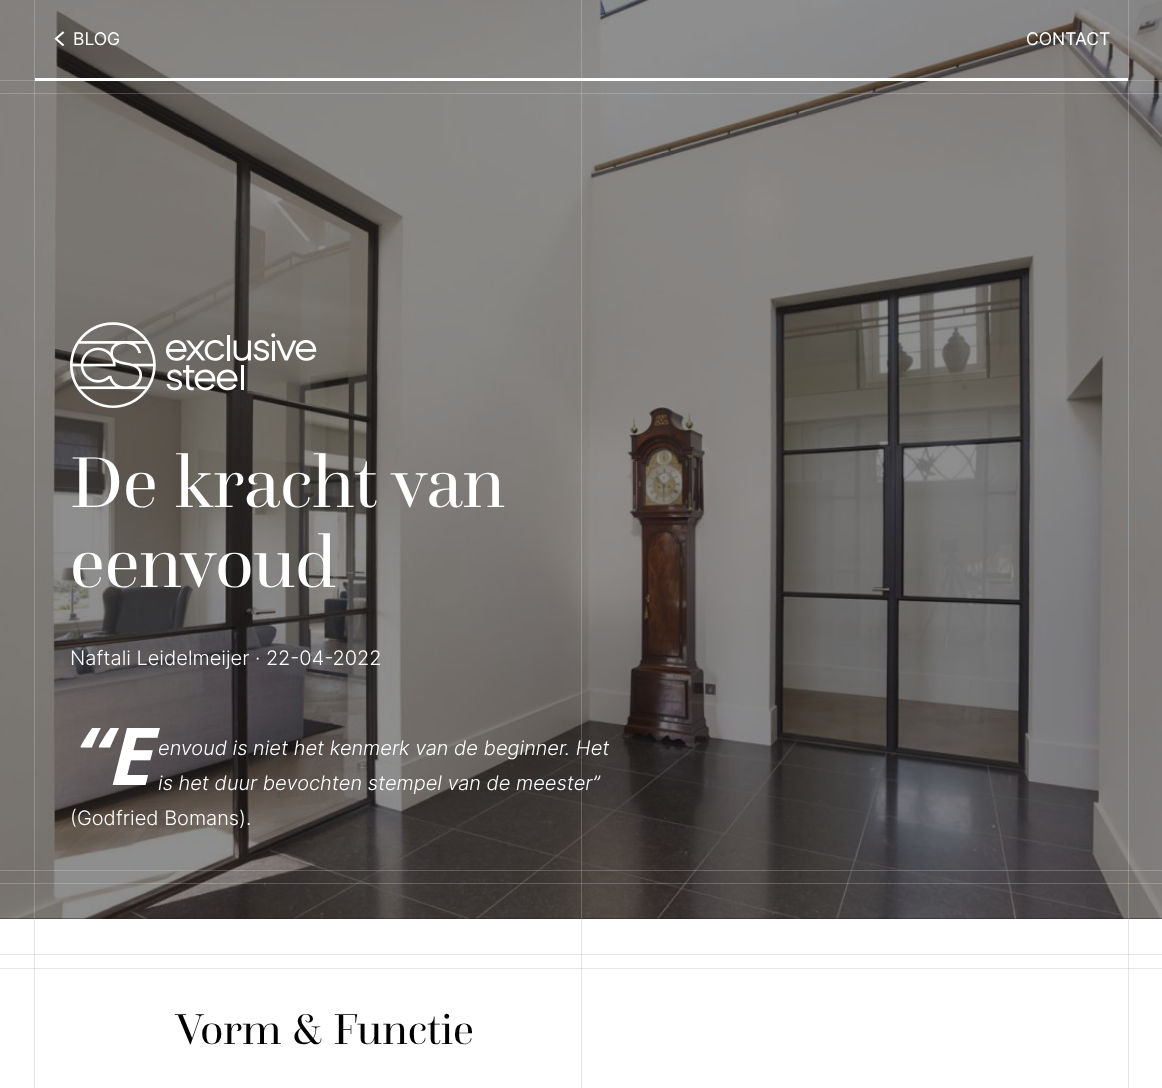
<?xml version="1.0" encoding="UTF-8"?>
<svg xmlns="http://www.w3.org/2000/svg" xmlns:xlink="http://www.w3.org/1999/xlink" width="1162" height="1088">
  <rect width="100%" height="100%" fill="#ffffff" />
  <rect x="581" y="919" width="1" height="169" fill="#e6e6e6" />
  <rect y="968" width="1162" height="1" fill="#e6e6e6" />
  <rect x="581" y="968" width="1" height="1" fill="#cfcfcf" />
  <rect y="954" width="1162" height="1" fill="#e6e6e6" />
  <rect x="581" y="954" width="1" height="1" fill="#cfcfcf" />
  <rect width="1162" height="919" fill="#1c1c1c" />
  <image x="0" y="0" width="1162" height="919" xlink:href="image2.png" />
  <rect x="34" width="1" height="919" fill="#ffffff" fill-opacity="0.2" />
  <rect y="883" width="1162" height="1" fill="#ffffff" fill-opacity="0.2" />
  <rect y="870" width="1162" height="1" fill="#ffffff" fill-opacity="0.2" />
  <rect x="1128" width="1" height="919" fill="#ffffff" fill-opacity="0.2" />
  <rect y="80" width="1162" height="1" fill="#ffffff" fill-opacity="0.2" />
  <rect y="93" width="1162" height="1" fill="#ffffff" fill-opacity="0.2" />
  <rect x="581" width="1" height="919" fill="#ffffff" fill-opacity="0.2" />
  <rect x="35" y="78" width="1093" height="3" fill="#ffffff" />
  <image x="54" y="31" width="11" height="15" xlink:href="image1.png" />
  <image x="70" y="322" width="247" height="86" xlink:href="image3.png" />
  <rect x="34" y="919" width="1" height="169" fill="#e6e6e6" />
  <rect x="34" y="968" width="1" height="1" fill="#cfcfcf" />
  <rect x="34" y="954" width="1" height="1" fill="#cfcfcf" />
  <rect x="1128" y="919" width="1" height="169" fill="#e6e6e6" />
  <rect x="1128" y="968" width="1" height="1" fill="#cfcfcf" />
  <rect x="1128" y="954" width="1" height="1" fill="#cfcfcf" />
  <text x="73" y="45" style="font-family: Inter; font-size: 17.5px; fill: #ffffff">BLOG</text>
  <text x="1026" y="45" style="font-family: Inter; font-size: 17.5px; fill: #ffffff">CONTACT</text>
  <text x="70" y="507" style="font-family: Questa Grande; font-size: 75px; fill: #ffffff">De kracht van</text>
  <text x="70" y="587" style="font-family: Questa Grande; font-size: 75px; fill: #ffffff">eenvoud</text>
  <text x="70" y="665" style="font-family: Inter; font-size: 20px; font-weight: 300; fill: #ffffff">Naftali Leidelmeijer · 22-04-2022</text>
  <text x="70" y="785" style="font-family: Noto Sans; font-size: 80px; font-weight: bold; font-style: italic; fill: #ffffff">“E</text>
  <text x="158" y="755" style="font-family: Inter; font-size: 20px; font-weight: 300; font-style: italic; fill: #ffffff">envoud is niet het kenmerk van de beginner. Het</text>
  <text x="158" y="790" style="font-family: Inter; font-size: 20px; font-weight: 300; font-style: italic; fill: #ffffff">is het duur bevochten stempel van de meester”</text>
  <text x="70" y="825" style="font-family: Inter; font-size: 20px; font-weight: 300; fill: #ffffff">(Godfried Bomans).</text>
  <text x="176" y="1044" style="font-family: Questa Grande; font-size: 45px; fill: #000000">Vorm &amp; Functie</text>
</svg>
